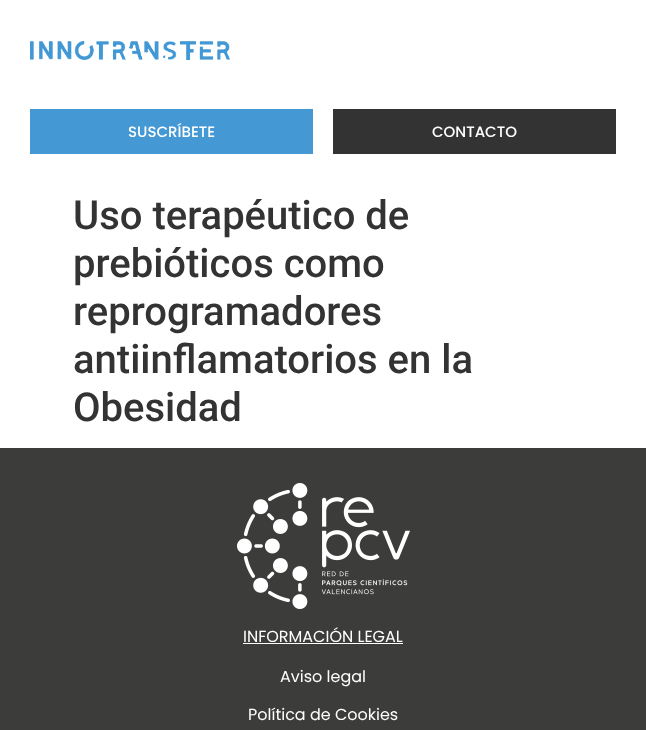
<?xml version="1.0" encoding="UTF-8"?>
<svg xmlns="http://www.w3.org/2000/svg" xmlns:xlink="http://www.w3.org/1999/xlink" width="646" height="730">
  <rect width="100%" height="100%" fill="#ffffff" />
  <image x="30" y="41" width="200" height="19" xlink:href="image1.png" />
  <rect x="30" y="109" width="283" height="45" fill="#4499d4" />
  <rect x="333" y="109" width="283" height="45" fill="#333333" />
  <rect y="448" width="646" height="282" fill="#3c3c3b" />
  <image x="237" y="483" width="173" height="126" xlink:href="image2.png" />
  <rect x="243" y="643" width="160" height="1" fill="#ffffff" />
  <text x="128" y="137" style="font-family: Poppins; font-size: 15px; font-weight: 500; fill: #ffffff">SUSCRÍBETE</text>
  <text x="432" y="137" style="font-family: Poppins; font-size: 15px; font-weight: 500; fill: #ffffff">CONTACTO</text>
  <text x="73" y="229" style="font-family: Roboto; font-size: 40px; font-weight: 500; fill: #333333">Uso terapéutico de</text>
  <text x="73" y="277" style="font-family: Roboto; font-size: 40px; font-weight: 500; fill: #333333">prebióticos como</text>
  <text x="73" y="325" style="font-family: Roboto; font-size: 40px; font-weight: 500; fill: #333333">reprogramadores</text>
  <text x="73" y="373" style="font-family: Roboto; font-size: 40px; font-weight: 500; fill: #333333">antiinflamatorios en la</text>
  <text x="73" y="421" style="font-family: Roboto; font-size: 40px; font-weight: 500; fill: #333333">Obesidad</text>
  <text x="243" y="642" style="font-family: Poppins; font-size: 16px; fill: #ffffff">INFORMACIÓN LEGAL</text>
  <text x="280" y="682" style="font-family: Poppins; font-size: 16px; fill: #ffffff">Aviso legal</text>
  <text x="248" y="720" style="font-family: Poppins; font-size: 16px; fill: #ffffff">Política de Cookies</text>
</svg>
